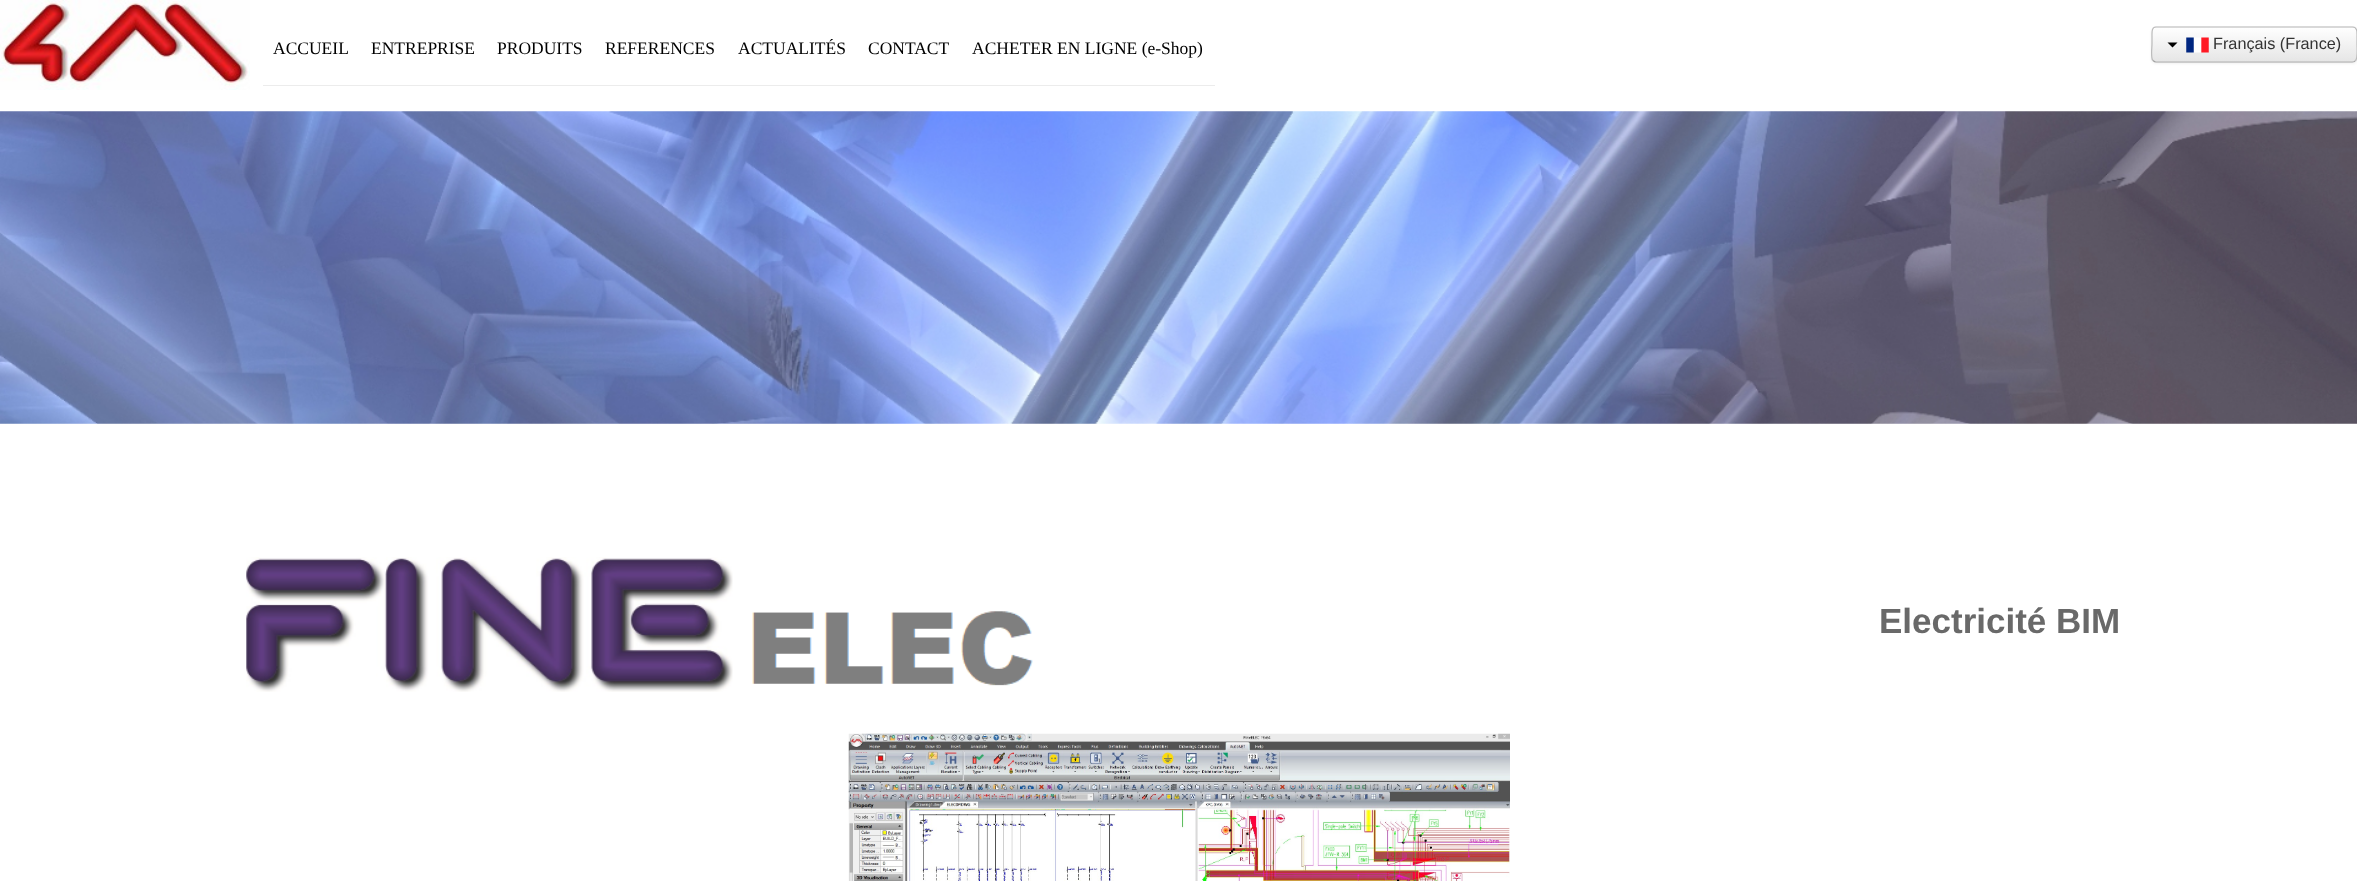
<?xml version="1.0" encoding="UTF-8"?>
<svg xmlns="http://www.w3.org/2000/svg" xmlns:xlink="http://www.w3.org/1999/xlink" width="2357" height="881">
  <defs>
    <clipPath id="clip1"><rect x="2151" y="26" width="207" height="37" rx="5" /></clipPath>
    <linearGradient id="g1" gradientUnits="userSpaceOnUse" x1="2254" y1="27" x2="2254" y2="61"><stop offset="0" stop-color="#ffffff" /><stop offset="1" stop-color="#e6e6e6" /></linearGradient>
  </defs>
  <rect width="100%" height="100%" fill="#ffffff" />
  <image x="0" y="0" width="250" height="90" xlink:href="image1.png" />
  <rect x="263" y="85" width="952" height="1" fill="#ececec" />
  <rect x="2151" y="28" width="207" height="36" rx="5" fill="#000000" fill-opacity="0.05" filter="blur(1px)" />
  <rect x="2151" y="26" width="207" height="37" rx="5" fill="#f5f5f5" />
  <g clip-path="url(#clip1)">
    <rect x="2151" y="28" width="206" height="33" fill="url(#g1)" />
  </g>
  <path d="M 2355.5 60.5 c -0.5 1 -2 1.5 -3 1.5 h -196.5 c -1 0 -2 -0.5 -3 -1.5" fill="none" stroke="#a2a2a2" stroke-width="1.2" />
  <path d="M 2153 60.5 c -2.5 -2.5 -1 -13 -1 -16 v -9 c 0 -3 -0.5 -8.5 4 -8.5 h 196.5 c 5 0 4.5 5.5 4.5 8.5 v 9 c 0 3 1 13.5 -1.5 16" fill="none" stroke="#bbbbbb" stroke-width="1.2" />
  <path d="M 2167.5 42.5 h 10 l -5 5 z" fill="#000000" />
  <image x="2186" y="37" width="23" height="16" xlink:href="image2.png" />
  <image x="0" y="111" width="2357" height="313" xlink:href="image3.png" />
  <image x="246" y="557" width="787" height="135" xlink:href="image4.png" />
  <image x="848" y="733" width="662" height="148" xlink:href="image5.png" />
  <text x="273" y="54" style="font-family: Liberation Serif; font-size: 17.5px; fill: #000000">ACCUEIL</text>
  <text x="371" y="54" style="font-family: Liberation Serif; font-size: 17.5px; fill: #000000">ENTREPRISE</text>
  <text x="497" y="54" style="font-family: Liberation Serif; font-size: 17.5px; fill: #000000">PRODUITS</text>
  <text x="605" y="54" style="font-family: Liberation Serif; font-size: 17.5px; fill: #000000">REFERENCES</text>
  <text x="738" y="54" style="font-family: Liberation Serif; font-size: 17.5px; fill: #000000">ACTUALITÉS</text>
  <text x="868" y="54" style="font-family: Liberation Serif; font-size: 17.5px; fill: #000000">CONTACT</text>
  <text x="972" y="54" style="font-family: Liberation Serif; font-size: 17.5px; fill: #000000">ACHETER EN LIGNE (e-Shop)</text>
  <text x="2213" y="49" style="font-family: Liberation Sans; font-size: 16.25px; fill: #333333">Français (France)</text>
  <text x="1879" y="633" style="font-family: Liberation Sans; font-size: 35px; font-weight: bold; fill: #696969">Electricité BIM</text>
</svg>
